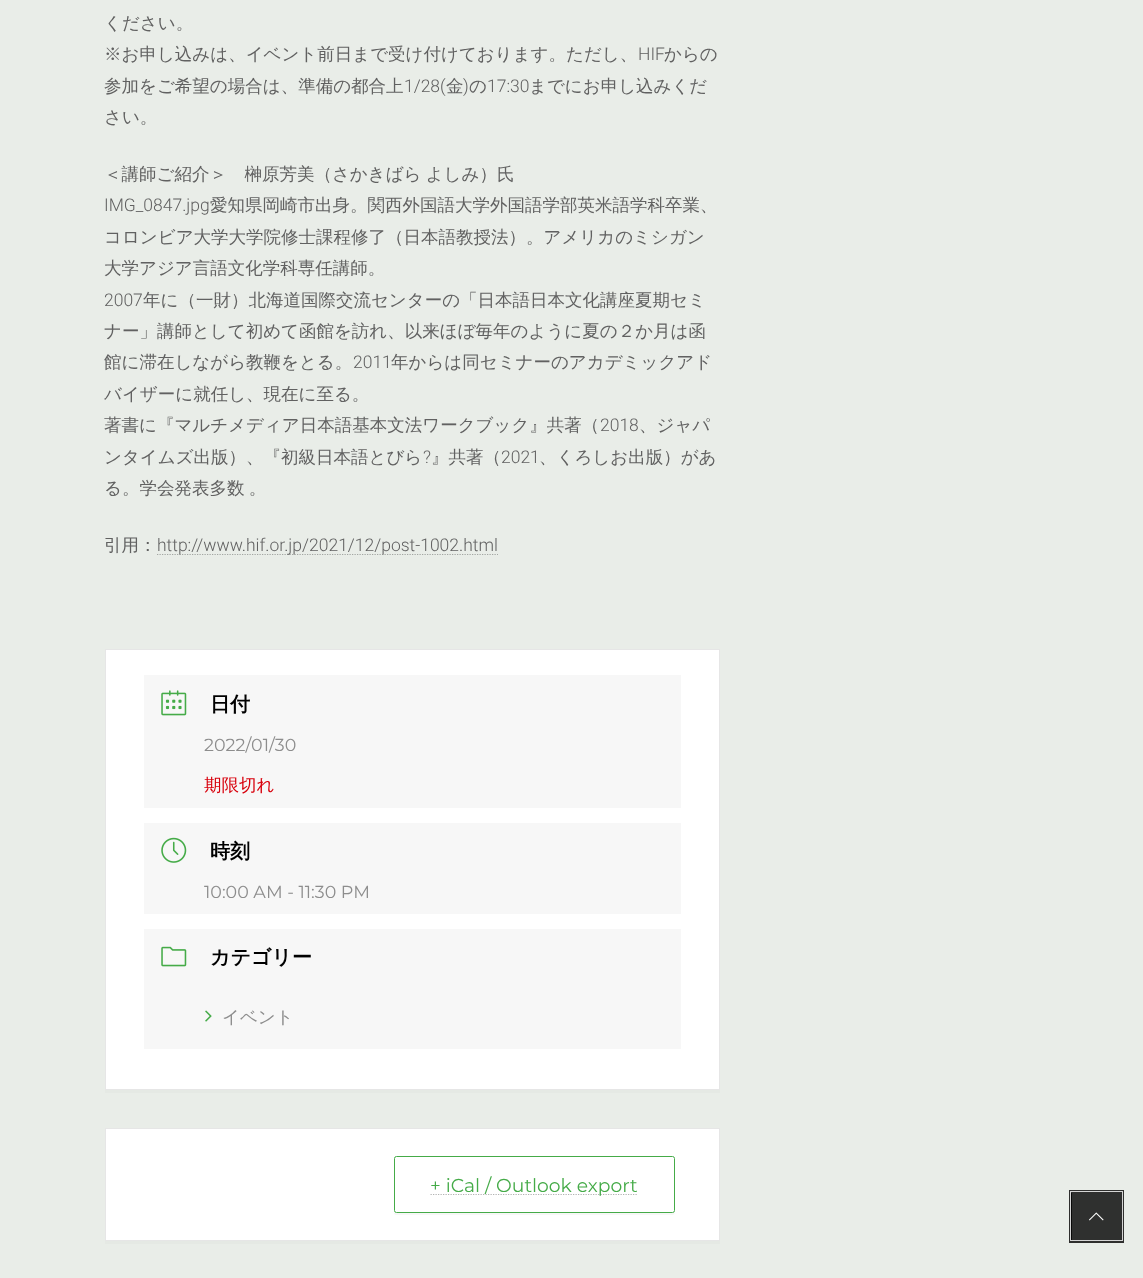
<?xml version="1.0" encoding="UTF-8"?>
<svg xmlns="http://www.w3.org/2000/svg" xmlns:xlink="http://www.w3.org/1999/xlink" width="1143" height="1278">
  <rect width="100%" height="100%" fill="#e9ede8" />
  <path d="M 157 554.5 h 341" fill="none" stroke="#a3a6a2" stroke-width="1.2" stroke-dasharray="1.25 1.25" />
  <rect x="105" y="1090" width="615" height="3" fill="#e5e9e4" />
  <rect x="105.5" y="649.5" width="614" height="440" fill="#ffffff" stroke="#e6e6e6" />
  <rect x="144" y="675" width="537" height="133" fill="#f7f7f7" />
  <image x="161" y="690" width="26" height="26" xlink:href="image1.png" />
  <rect x="144" y="823" width="537" height="91" fill="#f7f7f7" />
  <image x="161" y="837" width="26" height="26" xlink:href="image2.png" />
  <rect x="144" y="929" width="537" height="120" fill="#f7f7f7" />
  <image x="161" y="946" width="26" height="21" xlink:href="image3.png" />
  <image x="205" y="1010" width="7" height="12" xlink:href="image4.png" />
  <rect x="105" y="1241" width="615" height="3" fill="#e5e9e4" />
  <rect x="105.5" y="1128.5" width="614" height="112" fill="#ffffff" stroke="#e6e6e6" />
  <path d="M 394 1211 c 0 2 0 4 2 4 h 277 c 2 -1 2 -3 2 -5 c 0 1 -1 2 -3 2 h -276 c -1 0 -2 0 -2 -1 z" fill="#f7f7f7" />
  <rect x="394.5" y="1156.5" width="280" height="56" rx="2" fill="#ffffff" stroke="#45ab48" />
  <path d="M 430.5 1194.5 h 207.5" fill="none" stroke="#b3b3b3" stroke-width="1.2" stroke-dasharray="1.25 1.25" />
  <rect x="1070.5" y="1191.5" width="52" height="50" fill="none" stroke="#2f2f2e" stroke-width="3" />
  <rect x="1070.5" y="1191.5" width="52" height="49" fill="none" stroke="#d5d5d5" />
  <rect x="1071" y="1193" width="50" height="47" fill="#000000" fill-opacity="0.8" />
  <image x="1089" y="1212" width="15" height="9" xlink:href="image5.png" />
  <text x="104" y="29" style="font-family: WenQuanYi Zen Hei; font-size: 17.5px; font-weight: 500; fill: #616161">ください。</text>
  <text x="104" y="60" style="font-family: WenQuanYi Zen Hei; font-size: 17.5px; font-weight: 500; fill: #616161">※お申し込みは、イベント前日まで受け付けております。ただし、</text>
  <text x="638" y="60" style="font-family: Roboto; font-size: 17.5px; font-weight: 300; fill: #616161">HIF</text>
  <text x="664" y="60" style="font-family: WenQuanYi Zen Hei; font-size: 17.5px; font-weight: 500; fill: #616161">からの</text>
  <text x="104" y="92" style="font-family: WenQuanYi Zen Hei; font-size: 17.5px; font-weight: 500; fill: #616161">参加をご希望の場合は、準備の都合上</text>
  <text x="404" y="92" style="font-family: Roboto; font-size: 17.5px; font-weight: 300; fill: #616161">1/28(</text>
  <text x="446" y="92" style="font-family: WenQuanYi Zen Hei; font-size: 17.5px; font-weight: 500; fill: #616161">金</text>
  <text x="463" y="92" style="font-family: Roboto; font-size: 17.5px; font-weight: 300; fill: #616161">)</text>
  <text x="469" y="92" style="font-family: WenQuanYi Zen Hei; font-size: 17.5px; font-weight: 500; fill: #616161">の</text>
  <text x="487" y="92" style="font-family: Roboto; font-size: 17.5px; font-weight: 300; fill: #616161">17:30</text>
  <text x="529" y="92" style="font-family: WenQuanYi Zen Hei; font-size: 17.5px; font-weight: 500; fill: #616161">までにお申し込みくだ</text>
  <text x="104" y="123" style="font-family: WenQuanYi Zen Hei; font-size: 17.5px; font-weight: 500; fill: #616161">さい。</text>
  <text x="104" y="180" word-spacing="-1" style="font-family: WenQuanYi Zen Hei; font-size: 17.5px; font-weight: 500; fill: #616161">＜講師ご紹介＞　榊原芳美（さかきばら よしみ）氏</text>
  <text x="104" y="211" style="font-family: Roboto; font-size: 17.5px; font-weight: 300; fill: #616161">IMG_0847.jpg</text>
  <text x="210" y="211" style="font-family: WenQuanYi Zen Hei; font-size: 17.5px; font-weight: 500; fill: #616161">愛知県岡崎市出身。関西外国語大学外国語学部英米語学科卒業、</text>
  <text x="104" y="243" style="font-family: WenQuanYi Zen Hei; font-size: 17.5px; font-weight: 500; fill: #616161">コロンビア大学大学院修士課程修了（日本語教授法）。アメリカのミシガン</text>
  <text x="104" y="274" style="font-family: WenQuanYi Zen Hei; font-size: 17.5px; font-weight: 500; fill: #616161">大学アジア言語文化学科専任講師。</text>
  <text x="104" y="306" style="font-family: Roboto; font-size: 17.5px; font-weight: 300; fill: #616161">2007</text>
  <text x="143" y="306" style="font-family: WenQuanYi Zen Hei; font-size: 17.5px; font-weight: 500; fill: #616161">年に（一財）北海道国際交流センターの「日本語日本文化講座夏期セミ</text>
  <text x="104" y="337" style="font-family: WenQuanYi Zen Hei; font-size: 17.5px; font-weight: 500; fill: #616161">ナー」講師として初めて函館を訪れ、以来ほぼ毎年のように夏の２か月は函</text>
  <text x="104" y="368" style="font-family: WenQuanYi Zen Hei; font-size: 17.5px; font-weight: 500; fill: #616161">館に滞在しながら教鞭をとる。</text>
  <text x="353" y="368" style="font-family: Roboto; font-size: 17.5px; font-weight: 300; fill: #616161">2011</text>
  <text x="391" y="368" style="font-family: WenQuanYi Zen Hei; font-size: 17.5px; font-weight: 500; fill: #616161">年からは同セミナーのアカデミックアド</text>
  <text x="104" y="400" style="font-family: WenQuanYi Zen Hei; font-size: 17.5px; font-weight: 500; fill: #616161">バイザーに就任し、現在に至る。</text>
  <text x="104" y="431" style="font-family: WenQuanYi Zen Hei; font-size: 17.5px; font-weight: 500; fill: #616161">著書に『マルチメディア日本語基本文法ワークブック』共著（</text>
  <text x="600" y="431" style="font-family: Roboto; font-size: 17.5px; font-weight: 300; fill: #616161">2018</text>
  <text x="639" y="431" style="font-family: WenQuanYi Zen Hei; font-size: 17.5px; font-weight: 500; fill: #616161">、ジャパ</text>
  <text x="104" y="463" style="font-family: WenQuanYi Zen Hei; font-size: 17.5px; font-weight: 500; fill: #616161">ンタイムズ出版）、『初級日本語とびら</text>
  <text x="423" y="463" style="font-family: Roboto; font-size: 17.5px; font-weight: 300; fill: #616161">?</text>
  <text x="431" y="463" style="font-family: WenQuanYi Zen Hei; font-size: 17.5px; font-weight: 500; fill: #616161">』共著（</text>
  <text x="501" y="463" style="font-family: Roboto; font-size: 17.5px; font-weight: 300; fill: #616161">2021</text>
  <text x="539" y="463" style="font-family: WenQuanYi Zen Hei; font-size: 17.5px; font-weight: 500; fill: #616161">、くろしお出版）があ</text>
  <text x="104" y="494" word-spacing="-1" style="font-family: WenQuanYi Zen Hei; font-size: 17.5px; font-weight: 500; fill: #616161">る。学会発表多数 。</text>
  <text x="104" y="551" style="font-family: WenQuanYi Zen Hei; font-size: 17.5px; font-weight: 500; fill: #616161">引用：</text>
  <text x="157" y="551" style="font-family: Roboto; font-size: 17.5px; font-weight: 300; fill: #616161">http://www.hif.or.jp/2021/12/post-1002.html</text>
  <text x="210" y="711" style="font-family: WenQuanYi Zen Hei; font-size: 20px; font-weight: bold; fill: #000000">日付</text>
  <text x="204" y="751" style="font-family: Montserrat; font-size: 17.5px; fill: #8d8d8d">2022/01/30</text>
  <text x="204" y="791" style="font-family: WenQuanYi Zen Hei; font-size: 17.5px; font-weight: 500; fill: #d8000c">期限切れ</text>
  <text x="210" y="858" style="font-family: WenQuanYi Zen Hei; font-size: 20px; font-weight: bold; fill: #000000">時刻</text>
  <text x="204" y="898" style="font-family: Montserrat; font-size: 17.5px; fill: #8d8d8d">10:00 AM - 11:30 PM</text>
  <text x="210" y="964" style="font-family: WenQuanYi Zen Hei; font-size: 20px; font-weight: bold; fill: #000000">カテゴリー</text>
  <text x="222" y="1023" style="font-family: WenQuanYi Zen Hei; font-size: 17.5px; font-weight: 500; fill: #8d8d8d">イベント</text>
  <text x="430" y="1192" style="font-family: Montserrat; font-size: 18.75px; fill: #45ab48">+ iCal / Outlook export</text>
</svg>
